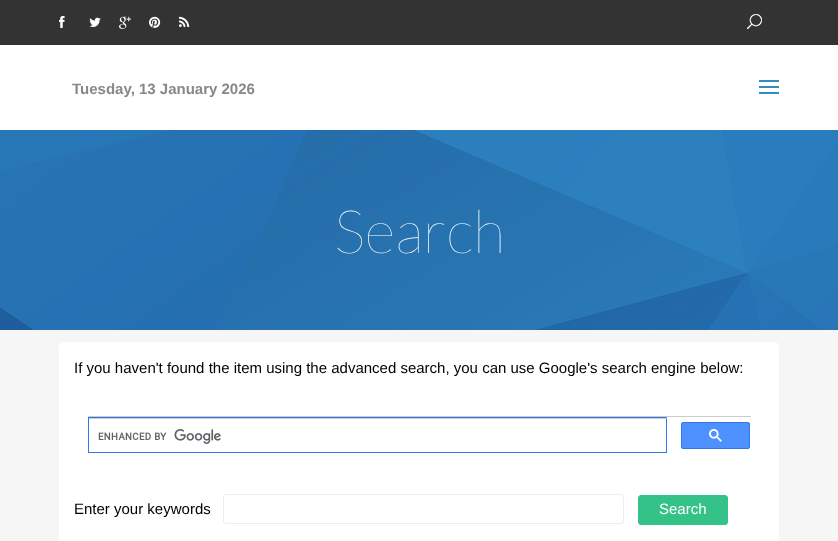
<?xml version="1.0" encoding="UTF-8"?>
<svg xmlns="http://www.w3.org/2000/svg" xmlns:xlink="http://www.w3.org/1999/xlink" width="838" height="541">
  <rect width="100%" height="100%" fill="#f6f6f6" />
  <rect width="838" height="45" fill="#333333" />
  <image x="59" y="16" width="6" height="12" xlink:href="image1.png" />
  <image x="89" y="17" width="12" height="10" xlink:href="image2.png" />
  <image x="119" y="16" width="13" height="13" xlink:href="image3.png" />
  <image x="149" y="16" width="12" height="12" xlink:href="image4.png" />
  <image x="179" y="16" width="11" height="11" xlink:href="image5.png" />
  <image x="747" y="14" width="15" height="15" xlink:href="image6.png" />
  <rect y="45" width="838" height="85" fill="#ffffff" />
  <rect x="759" y="80" width="20" height="2" fill="#348bc2" />
  <rect x="759" y="86" width="20" height="2" fill="#348bc2" />
  <rect x="759" y="92" width="20" height="2" fill="#348bc2" />
  <image x="0" y="130" width="838" height="200" xlink:href="image7.png" />
  <path d="M 64 342 h 710 c 3 0 5 2 5 5 v 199 h -720 v -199 c 0 -3 2 -5 5 -5 z" fill="#ffffff" />
  <rect x="88" y="416" width="663" height="1" fill="#cccccc" />
  <rect x="88.5" y="417.5" width="578" height="35" fill="none" stroke="#3079ed" />
  <rect x="89" y="418" width="578" height="1" fill="#cccccc" />
  <image x="98" y="429" width="123" height="15" xlink:href="image8.png" />
  <rect x="681.5" y="422.5" width="68" height="26" rx="1.5" fill="#4d90fe" stroke="#3079ed" />
  <image x="709" y="429" width="13" height="13" xlink:href="image9.png" />
  <rect x="223.5" y="494.5" width="400" height="29" rx="2.5" fill="none" stroke="#ededed" />
  <rect x="638.5" y="495.5" width="89" height="29" rx="2.5" fill="#34c288" stroke="#34c288" />
  <text x="72" y="94" style="font-family: Liberation Sans; font-size: 15px; font-weight: bold; fill: #888888">Tuesday, 13 January 2026</text>
  <text x="334" y="253" style="font-family: Lato; font-size: 60px; font-weight: 100; fill: #ffffff">Search</text>
  <text x="74" y="373" style="font-family: Liberation Sans; font-size: 15px; fill: #000000">If you haven't found the item using the advanced search, you can use Google's search engine below:</text>
  <text x="74" y="514" style="font-family: Liberation Sans; font-size: 15px; fill: #000000">Enter your keywords</text>
  <text x="659" y="514" style="font-family: Liberation Sans; font-size: 15px; fill: #ffffff">Search</text>
</svg>
